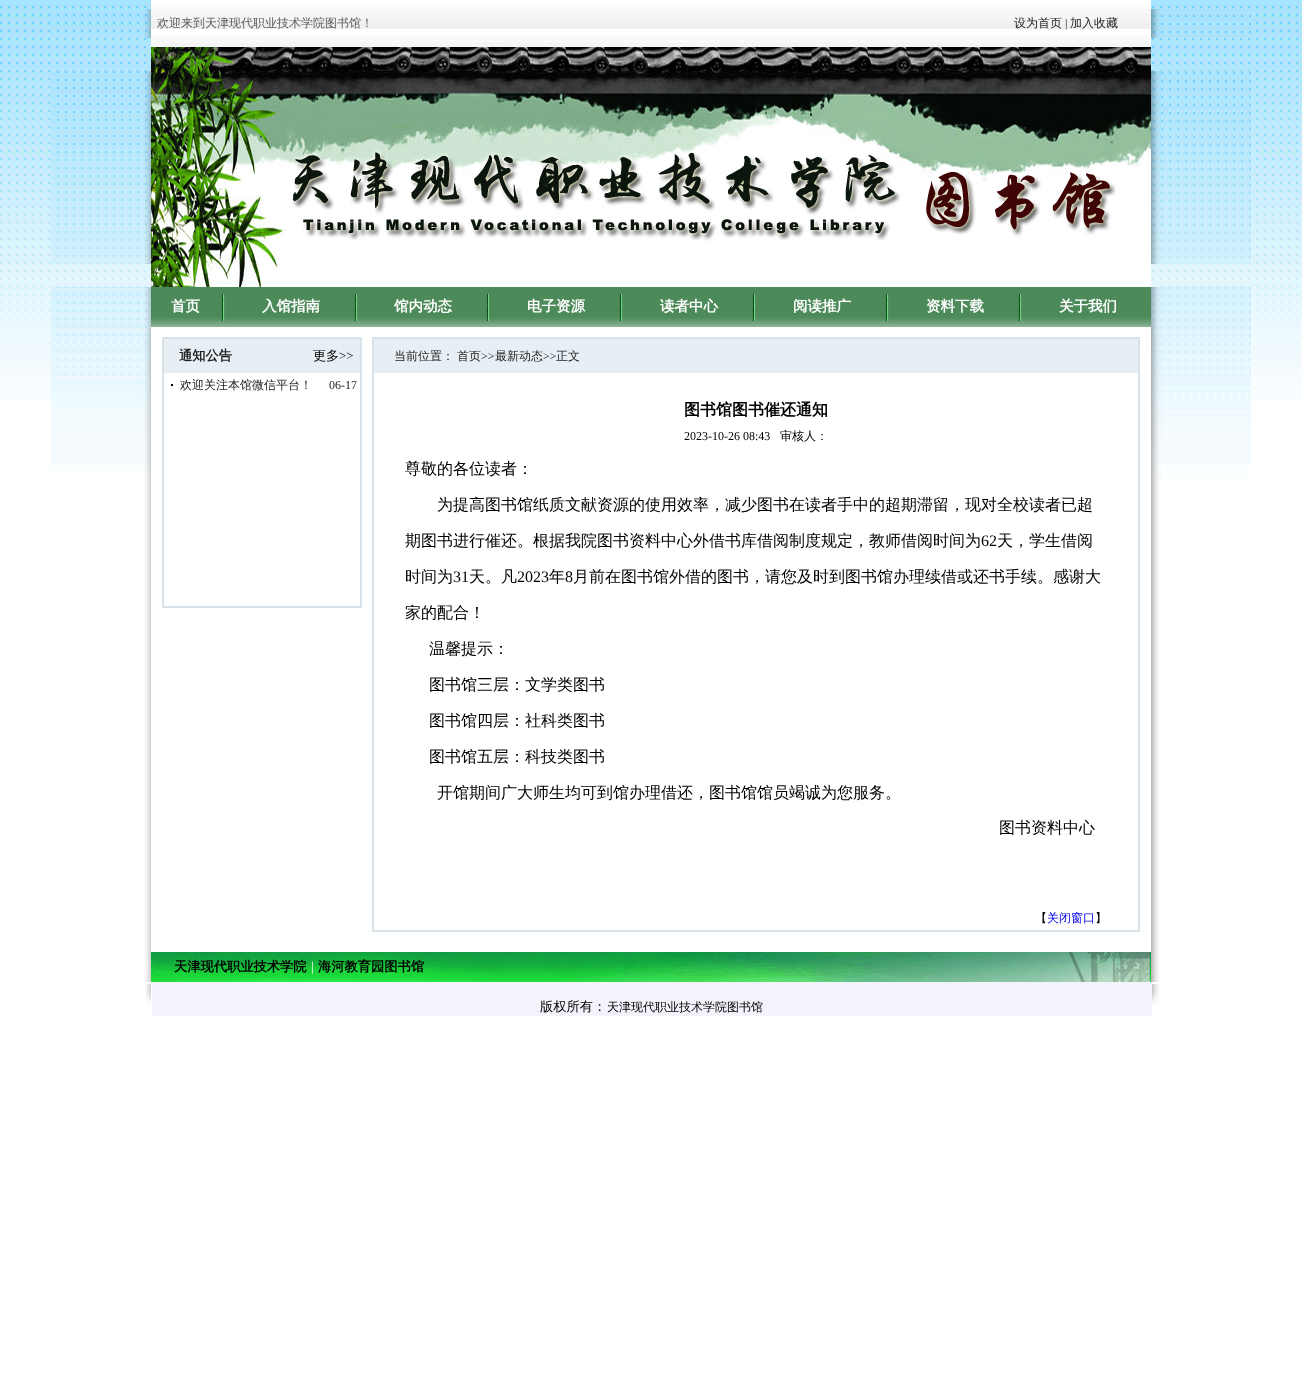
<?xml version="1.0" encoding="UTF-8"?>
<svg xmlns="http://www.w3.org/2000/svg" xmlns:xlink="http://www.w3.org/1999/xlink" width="1302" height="1374">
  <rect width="100%" height="100%" fill="#ffffff" />
  <image x="0" y="0" width="1302" height="402" xlink:href="image1.png" />
  <image x="51" y="9" width="100" height="29" xlink:href="image2.png" />
  <image x="151" y="0" width="1000" height="47" xlink:href="image3.png" />
  <image x="1151" y="9" width="100" height="29" xlink:href="image4.png" />
  <image x="51" y="71" width="100" height="193" xlink:href="image5.png" />
  <image x="151" y="47" width="1000" height="240" xlink:href="image6.png" />
  <image x="1151" y="71" width="100" height="193" xlink:href="image7.png" />
  <image x="51" y="287" width="100" height="40" xlink:href="image8.png" />
  <image x="151" y="287" width="1000" height="40" xlink:href="image9.png" />
  <image x="221" y="293" width="4" height="28" xlink:href="image10.png" />
  <image x="354" y="294" width="4" height="27" xlink:href="image11.png" />
  <image x="486" y="294" width="4" height="27" xlink:href="image11.png" />
  <image x="619" y="294" width="4" height="27" xlink:href="image11.png" />
  <image x="752" y="293" width="4" height="28" xlink:href="image10.png" />
  <image x="885" y="293" width="4" height="28" xlink:href="image10.png" />
  <image x="1018" y="294" width="4" height="27" xlink:href="image11.png" />
  <image x="1151" y="287" width="100" height="40" xlink:href="image12.png" />
  <image x="51" y="472" width="100" height="510" xlink:href="image13.png" />
  <image x="51" y="327" width="100" height="145" xlink:href="image14.png" />
  <rect x="151" y="327" width="1000" height="75" fill="#ffffff" />
  <rect x="163" y="338" width="198" height="269" fill="none" stroke="#d8e3e9" stroke-width="2" />
  <rect x="164" y="339" width="196" height="34" fill="#e7eef4" />
  <rect x="171" y="384" width="2" height="2" fill="#000000" />
  <rect x="373" y="338" width="766" height="593" fill="none" stroke="#d8e3e9" stroke-width="2" />
  <rect x="374" y="339" width="764" height="34" fill="#e7eef4" />
  <image x="151" y="952" width="1000" height="30" xlink:href="image15.png" />
  <image x="1151" y="481" width="100" height="501" xlink:href="image16.png" />
  <image x="1151" y="327" width="100" height="154" xlink:href="image17.png" />
  <image x="145" y="984" width="6" height="20" xlink:href="image18.png" />
  <image x="1152" y="984" width="8" height="20" xlink:href="image19.png" />
  <rect x="152" y="982" width="1000" height="34" fill="#f3f3fb" />
  <text x="157" y="27" style="font-family: WenQuanYi Zen Hei; font-size: 12px; font-weight: 500; fill: #5c5c5c">欢迎来到天津现代职业技术学院图书馆！</text>
  <text x="1014" y="27" style="font-family: WenQuanYi Zen Hei; font-size: 12px; font-weight: 500; fill: #222222">设为首页</text>
  <text x="1065" y="27" style="font-family: Liberation Serif; font-size: 12px; fill: #222222">|</text>
  <text x="1070" y="27" style="font-family: WenQuanYi Zen Hei; font-size: 12px; font-weight: 500; fill: #222222">加入收藏</text>
  <text x="171" y="311" style="font-family: WenQuanYi Zen Hei; font-size: 14.5px; font-weight: bold; fill: #ffffff">首页</text>
  <text x="262" y="311" style="font-family: WenQuanYi Zen Hei; font-size: 14.5px; font-weight: bold; fill: #ffffff">入馆指南</text>
  <text x="394" y="311" style="font-family: WenQuanYi Zen Hei; font-size: 14.5px; font-weight: bold; fill: #ffffff">馆内动态</text>
  <text x="527" y="311" style="font-family: WenQuanYi Zen Hei; font-size: 14.5px; font-weight: bold; fill: #ffffff">电子资源</text>
  <text x="660" y="311" style="font-family: WenQuanYi Zen Hei; font-size: 14.5px; font-weight: bold; fill: #ffffff">读者中心</text>
  <text x="793" y="311" style="font-family: WenQuanYi Zen Hei; font-size: 14.5px; font-weight: bold; fill: #ffffff">阅读推广</text>
  <text x="926" y="311" style="font-family: WenQuanYi Zen Hei; font-size: 14.5px; font-weight: bold; fill: #ffffff">资料下载</text>
  <text x="1059" y="311" style="font-family: WenQuanYi Zen Hei; font-size: 14.5px; font-weight: bold; fill: #ffffff">关于我们</text>
  <text x="179" y="360" style="font-family: WenQuanYi Zen Hei; font-size: 13.25px; font-weight: bold; fill: #222222">通知公告</text>
  <text x="313" y="360" style="font-family: WenQuanYi Zen Hei; font-size: 13px; font-weight: 500; fill: #000000">更多</text>
  <text x="339" y="360" style="font-family: Liberation Serif; font-size: 13px; fill: #000000">&gt;&gt;</text>
  <text x="180" y="389" style="font-family: WenQuanYi Zen Hei; font-size: 12px; font-weight: 500; fill: #222222">欢迎关注本馆微信平台！</text>
  <text x="329" y="389" style="font-family: Liberation Serif; font-size: 12px; fill: #222222">06-17</text>
  <text x="394" y="360" style="font-family: WenQuanYi Zen Hei; font-size: 12px; font-weight: 500; fill: #222222">当前位置：</text>
  <text x="457" y="360" style="font-family: WenQuanYi Zen Hei; font-size: 12px; font-weight: 500; fill: #222222">首页</text>
  <text x="481" y="360" style="font-family: Liberation Serif; font-size: 12px; fill: #222222">&gt;&gt;</text>
  <text x="495" y="360" style="font-family: WenQuanYi Zen Hei; font-size: 12px; font-weight: 500; fill: #222222">最新动态</text>
  <text x="543" y="360" style="font-family: Liberation Serif; font-size: 12px; fill: #222222">&gt;&gt;</text>
  <text x="556" y="360" style="font-family: WenQuanYi Zen Hei; font-size: 12px; font-weight: 500; fill: #222222">正文</text>
  <text x="684" y="415" style="font-family: WenQuanYi Zen Hei; font-size: 16px; font-weight: bold; fill: #000000">图书馆图书催还通知</text>
  <text x="684" y="440" style="font-family: Liberation Serif; font-size: 12px; fill: #000000">2023-10-26 08:43</text>
  <text x="780" y="440" style="font-family: WenQuanYi Zen Hei; font-size: 12px; font-weight: 500; fill: #000000">审核人：</text>
  <text x="405" y="474" style="font-family: WenQuanYi Zen Hei; font-size: 16px; font-weight: 500; fill: #000000">尊敬的各位读者：</text>
  <text x="437" y="510" style="font-family: WenQuanYi Zen Hei; font-size: 16px; font-weight: 500; fill: #000000">为提高图书馆纸质文献资源的使用效率，减少图书在读者手中的超期滞留，现对全校读者已超</text>
  <text x="405" y="546" style="font-family: WenQuanYi Zen Hei; font-size: 16px; font-weight: 500; fill: #000000">期图书进行催还。根据我院图书资料中心外借书库借阅制度规定，教师借阅时间为</text>
  <text x="981" y="546" style="font-family: Liberation Serif; font-size: 16px; fill: #000000">62</text>
  <text x="997" y="546" style="font-family: WenQuanYi Zen Hei; font-size: 16px; font-weight: 500; fill: #000000">天，学生借阅</text>
  <text x="405" y="582" style="font-family: WenQuanYi Zen Hei; font-size: 16px; font-weight: 500; fill: #000000">时间为</text>
  <text x="453" y="582" style="font-family: Liberation Serif; font-size: 16px; fill: #000000">31</text>
  <text x="469" y="582" style="font-family: WenQuanYi Zen Hei; font-size: 16px; font-weight: 500; fill: #000000">天。凡</text>
  <text x="517" y="582" style="font-family: Liberation Serif; font-size: 16px; fill: #000000">2023</text>
  <text x="549" y="582" style="font-family: WenQuanYi Zen Hei; font-size: 16px; font-weight: 500; fill: #000000">年</text>
  <text x="565" y="582" style="font-family: Liberation Serif; font-size: 16px; fill: #000000">8</text>
  <text x="573" y="582" style="font-family: WenQuanYi Zen Hei; font-size: 16px; font-weight: 500; fill: #000000">月前在图书馆外借的图书，请您及时到图书馆办理续借或还书手续。感谢大</text>
  <text x="405" y="618" style="font-family: WenQuanYi Zen Hei; font-size: 16px; font-weight: 500; fill: #000000">家的配合！</text>
  <text x="429" y="654" style="font-family: WenQuanYi Zen Hei; font-size: 16px; font-weight: 500; fill: #000000">温馨提示：</text>
  <text x="429" y="690" style="font-family: WenQuanYi Zen Hei; font-size: 16px; font-weight: 500; fill: #000000">图书馆三层：文学类图书</text>
  <text x="429" y="726" style="font-family: WenQuanYi Zen Hei; font-size: 16px; font-weight: 500; fill: #000000">图书馆四层：社科类图书</text>
  <text x="429" y="762" style="font-family: WenQuanYi Zen Hei; font-size: 16px; font-weight: 500; fill: #000000">图书馆五层：科技类图书</text>
  <text x="437" y="798" style="font-family: WenQuanYi Zen Hei; font-size: 16px; font-weight: 500; fill: #000000">开馆期间广大师生均可到馆办理借还，图书馆馆员竭诚为您服务。</text>
  <text x="999" y="833" style="font-family: WenQuanYi Zen Hei; font-size: 16px; font-weight: 500; fill: #000000">图书资料中心</text>
  <text x="1035" y="922" style="font-family: WenQuanYi Zen Hei; font-size: 12px; font-weight: 500; fill: #000000">【</text>
  <text x="1047" y="922" style="font-family: WenQuanYi Zen Hei; font-size: 12px; font-weight: 500; fill: #0000ee">关闭窗口</text>
  <text x="1095" y="922" style="font-family: WenQuanYi Zen Hei; font-size: 12px; font-weight: 500; fill: #000000">】</text>
  <text x="174" y="971" style="font-family: WenQuanYi Zen Hei; font-size: 13.25px; font-weight: bold; fill: #000000">天津现代职业技术学院</text>
  <text x="311" y="971" style="font-family: Liberation Serif; font-size: 13.25px; fill: #ffffff">|</text>
  <text x="318" y="971" style="font-family: WenQuanYi Zen Hei; font-size: 13.25px; font-weight: bold; fill: #000000">海河教育园图书馆</text>
  <text x="540" y="1011" style="font-family: WenQuanYi Zen Hei; font-size: 13.25px; font-weight: 500; fill: #000000">版权所有：</text>
  <text x="607" y="1011" style="font-family: WenQuanYi Zen Hei; font-size: 12px; font-weight: 500; fill: #000000">天津现代职业技术学院图书馆</text>
</svg>
